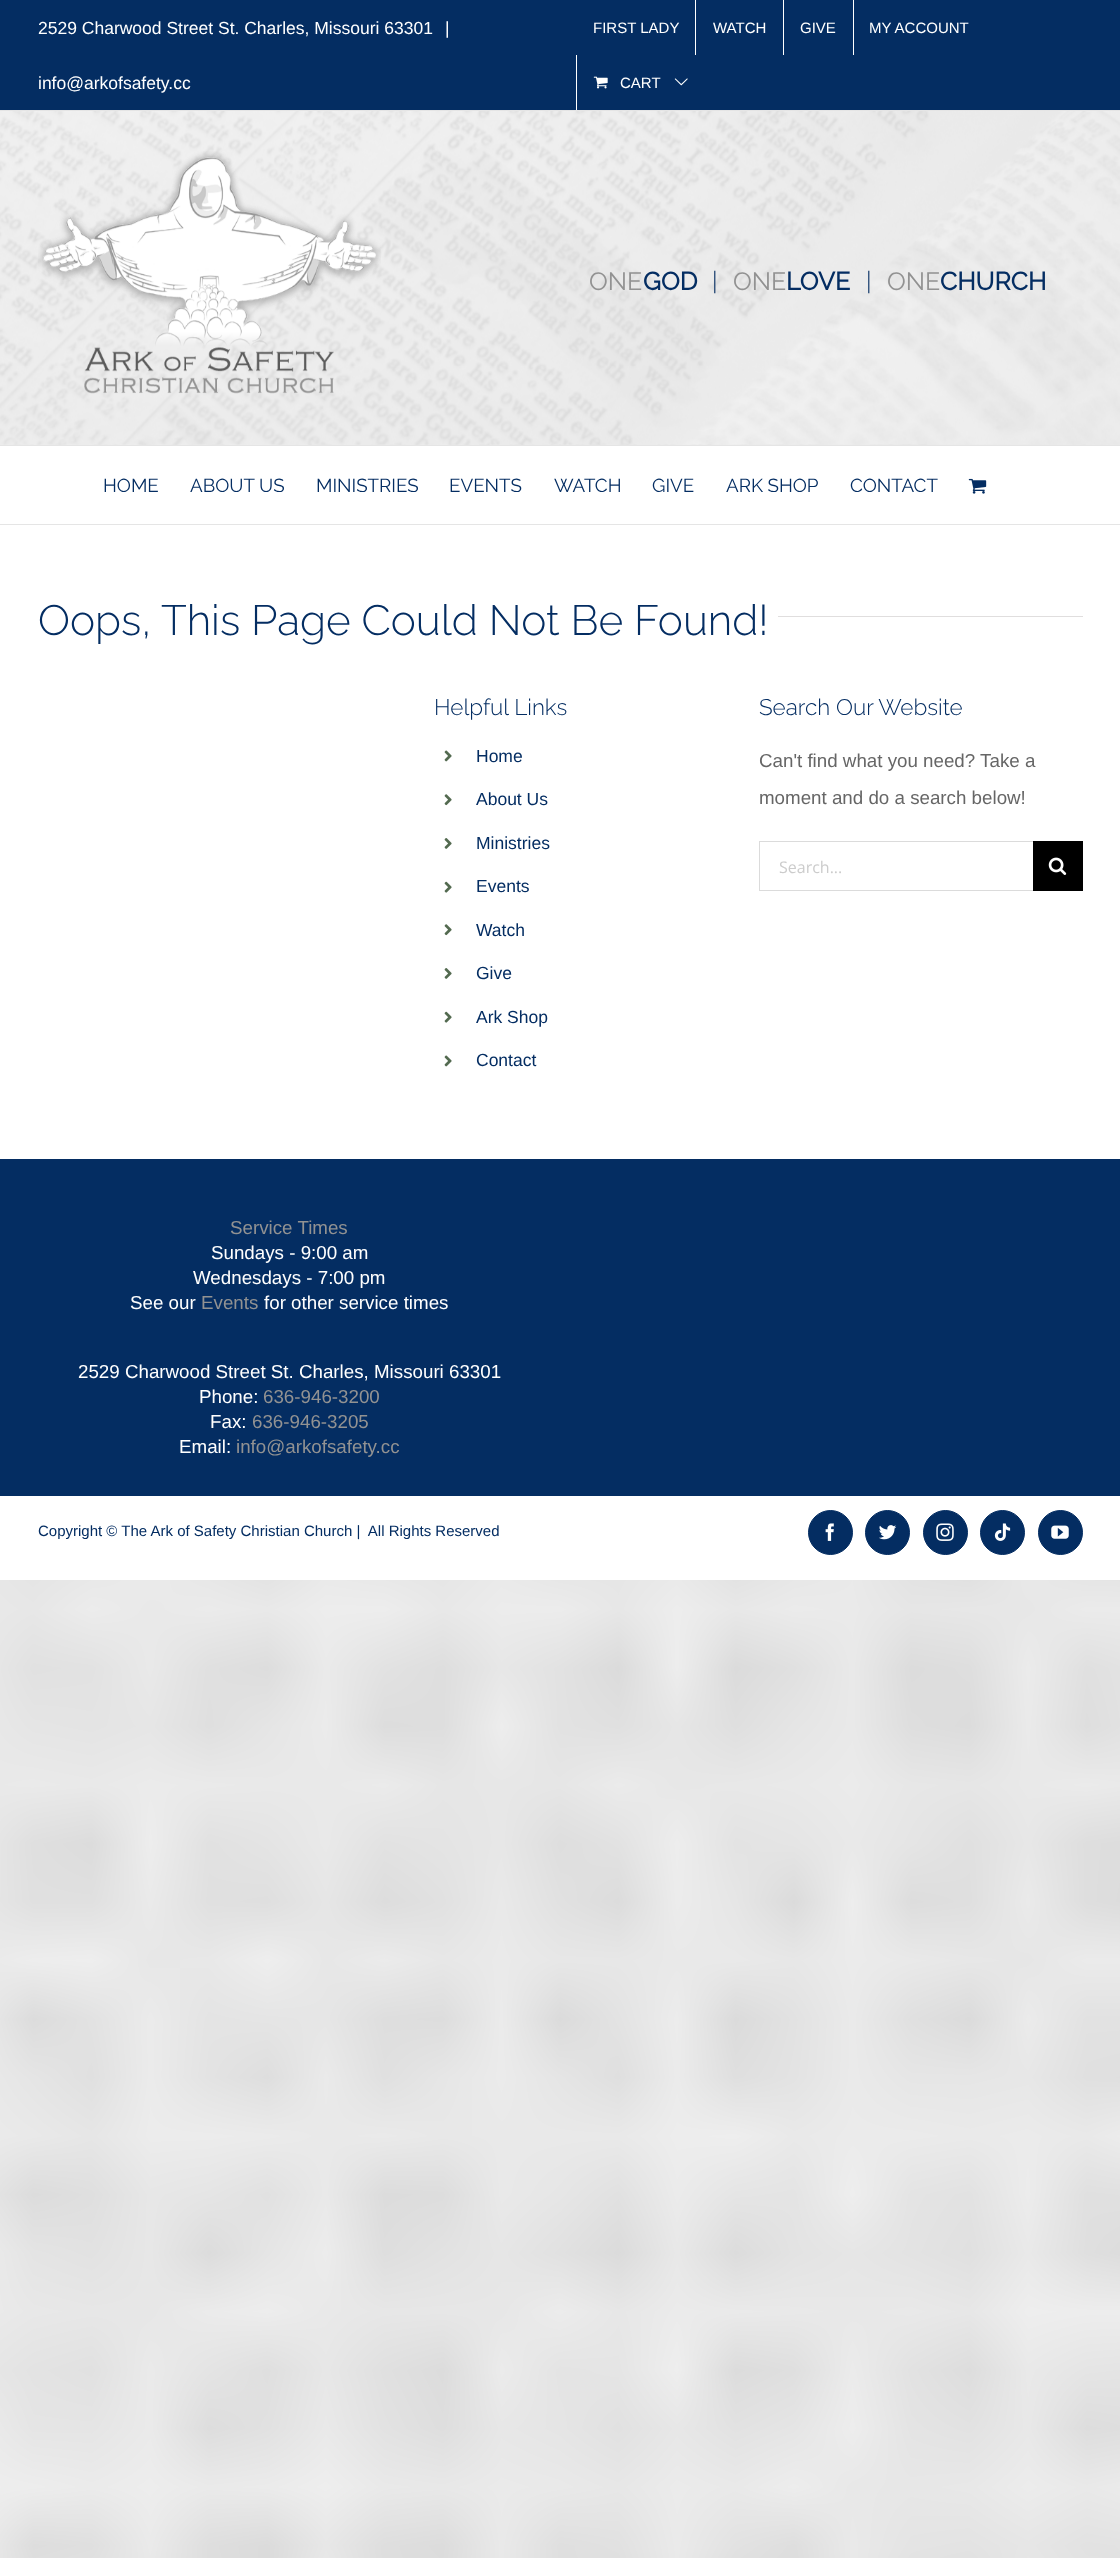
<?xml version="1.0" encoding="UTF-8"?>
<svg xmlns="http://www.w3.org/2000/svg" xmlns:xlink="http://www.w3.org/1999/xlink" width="1120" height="2558">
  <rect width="100%" height="100%" fill="#ffffff" />
  <image x="0" y="1580" width="1120" height="978" xlink:href="image1.png" />
  <rect width="1120" height="110" fill="#042d62" />
  <rect y="110" width="1120" height="1" fill="#e5e5e5" />
  <rect x="695" width="1" height="55" fill="#ffffff" />
  <rect x="783" width="1" height="55" fill="#ffffff" />
  <rect x="853" width="1" height="55" fill="#ffffff" />
  <rect x="576" y="55" width="1" height="55" fill="#ffffff" />
  <image x="593" y="76" width="15" height="13" xlink:href="image2.png" />
  <image x="674" y="78" width="14" height="8" xlink:href="image3.png" />
  <image x="0" y="111" width="1120" height="334" xlink:href="image4.png" />
  <rect y="445" width="1120" height="1" fill="#e5e5e5" />
  <image x="38" y="151" width="343" height="243" xlink:href="image5.png" />
  <rect y="524" width="1120" height="1" fill="#e5e5e5" />
  <image x="968" y="478" width="19" height="16" xlink:href="image6.png" />
  <rect x="778" y="616" width="305" height="1" fill="#e0dede" />
  <image x="444" y="750" width="8" height="12" xlink:href="image7.png" />
  <image x="444" y="794" width="8" height="12" xlink:href="image8.png" />
  <image x="444" y="838" width="8" height="11" xlink:href="image9.png" />
  <image x="444" y="881" width="8" height="12" xlink:href="image10.png" />
  <image x="444" y="924" width="8" height="12" xlink:href="image8.png" />
  <image x="444" y="968" width="8" height="11" xlink:href="image9.png" />
  <image x="444" y="1011" width="8" height="12" xlink:href="image10.png" />
  <image x="444" y="1055" width="8" height="12" xlink:href="image7.png" />
  <rect x="759" y="841" width="274" height="1" fill="#dbdbdb" />
  <rect x="759" y="890" width="274" height="1" fill="#dbdbdb" />
  <rect x="759" y="841" width="1" height="50" fill="#dbdbdb" />
  <rect x="1033" y="841" width="50" height="50" fill="#000000" />
  <image x="1048" y="857" width="19" height="18" xlink:href="image11.png" />
  <rect y="1159" width="1120" height="337" fill="#042d62" />
  <circle cx="830.5" cy="1532.5" r="22" fill="#042d62" stroke="#042d62" />
  <image x="825" y="1523" width="9" height="18" xlink:href="image12.png" />
  <circle cx="887.5" cy="1532.5" r="22" fill="#042d62" stroke="#042d62" />
  <image x="879" y="1525" width="18" height="15" xlink:href="image13.png" />
  <circle cx="945.5" cy="1532.5" r="22" fill="#042d62" stroke="#042d62" />
  <image x="936" y="1523" width="18" height="18" xlink:href="image14.png" />
  <circle cx="1002.5" cy="1532.5" r="22" fill="#042d62" stroke="#042d62" />
  <image x="994" y="1523" width="17" height="18" xlink:href="image15.png" />
  <circle cx="1060.5" cy="1532.5" r="22" fill="#042d62" stroke="#042d62" />
  <image x="1051" y="1525" width="18" height="14" xlink:href="image16.png" />
  <text x="38" y="34" style="font-family: Liberation Sans; font-size: 17.5px; fill: #ffffff">2529 Charwood Street St. Charles, Missouri 63301</text>
  <text x="445" y="34" style="font-family: Liberation Sans; font-size: 17.5px; fill: #ffffff">|</text>
  <text x="38" y="89" style="font-family: Liberation Sans; font-size: 17.5px; fill: #ffffff">info@arkofsafety.cc</text>
  <text x="593" y="33" style="font-family: Liberation Sans; font-size: 15px; fill: #ffffff">FIRST LADY</text>
  <text x="713" y="33" style="font-family: Liberation Sans; font-size: 15px; fill: #ffffff">WATCH</text>
  <text x="800" y="33" style="font-family: Liberation Sans; font-size: 15px; fill: #ffffff">GIVE</text>
  <text x="869" y="33" style="font-family: Liberation Sans; font-size: 15px; fill: #ffffff">MY ACCOUNT</text>
  <text x="620" y="88" style="font-family: Liberation Sans; font-size: 15px; fill: #ffffff">CART</text>
  <text x="589" y="290" style="font-family: Raleway; font-size: 25px; fill: #929292">ONE</text>
  <text x="643" y="290" style="font-family: Raleway; font-size: 25px; font-weight: bold; fill: #042d62">GOD</text>
  <text x="712" y="290" style="font-family: Raleway; font-size: 25px; font-weight: 300; fill: #042d62">|</text>
  <text x="733" y="290" style="font-family: Raleway; font-size: 25px; fill: #929292">ONE</text>
  <text x="786" y="290" style="font-family: Raleway; font-size: 25px; font-weight: bold; fill: #042d62">LOVE</text>
  <text x="866" y="290" style="font-family: Raleway; font-size: 25px; font-weight: 300; fill: #042d62">|</text>
  <text x="887" y="290" style="font-family: Raleway; font-size: 25px; fill: #929292">ONE</text>
  <text x="940" y="290" style="font-family: Raleway; font-size: 25px; font-weight: bold; fill: #042d62">CHURCH</text>
  <text x="103" y="492" style="font-family: Raleway; font-size: 18.75px; fill: #042d62">HOME</text>
  <text x="190" y="492" style="font-family: Raleway; font-size: 18.75px; fill: #042d62">ABOUT US</text>
  <text x="316" y="492" style="font-family: Raleway; font-size: 18.75px; fill: #042d62">MINISTRIES</text>
  <text x="449" y="492" style="font-family: Raleway; font-size: 18.75px; fill: #042d62">EVENTS</text>
  <text x="554" y="492" style="font-family: Raleway; font-size: 18.75px; fill: #042d62">WATCH</text>
  <text x="652" y="492" style="font-family: Raleway; font-size: 18.75px; fill: #042d62">GIVE</text>
  <text x="726" y="492" style="font-family: Raleway; font-size: 18.75px; fill: #042d62">ARK SHOP</text>
  <text x="850" y="492" style="font-family: Raleway; font-size: 18.75px; fill: #042d62">CONTACT</text>
  <text x="38" y="635" style="font-family: Raleway; font-size: 42.4px; font-weight: 300; fill: #042d62">Oops, This Page Could Not Be Found!</text>
  <text x="434" y="715" style="font-family: Raleway; font-size: 22.5px; font-weight: 300; fill: #042d62">Helpful Links</text>
  <text x="476" y="762" style="font-family: Liberation Sans; font-size: 17.5px; fill: #042d62">Home</text>
  <text x="476" y="805" style="font-family: Liberation Sans; font-size: 17.5px; fill: #042d62">About Us</text>
  <text x="476" y="849" style="font-family: Liberation Sans; font-size: 17.5px; fill: #042d62">Ministries</text>
  <text x="476" y="892" style="font-family: Liberation Sans; font-size: 17.5px; fill: #042d62">Events</text>
  <text x="476" y="936" style="font-family: Liberation Sans; font-size: 17.5px; fill: #042d62">Watch</text>
  <text x="476" y="979" style="font-family: Liberation Sans; font-size: 17.5px; fill: #042d62">Give</text>
  <text x="476" y="1023" style="font-family: Liberation Sans; font-size: 17.5px; fill: #042d62">Ark Shop</text>
  <text x="476" y="1066" style="font-family: Liberation Sans; font-size: 17.5px; fill: #042d62">Contact</text>
  <text x="759" y="715" style="font-family: Raleway; font-size: 22.5px; font-weight: 300; fill: #042d62">Search Our Website</text>
  <text x="759" y="767" style="font-family: Liberation Sans; font-size: 18.75px; fill: #666666">Can't find what you need? Take a</text>
  <text x="759" y="804" style="font-family: Liberation Sans; font-size: 18.75px; fill: #666666">moment and do a search below!</text>
  <text x="779" y="873" style="font-family: Open Sans; font-size: 16px; fill: #cccccc">Search...</text>
  <text x="230" y="1234" style="font-family: Liberation Sans; font-size: 18.75px; fill: #929292">Service Times</text>
  <text x="211" y="1259" style="font-family: Liberation Sans; font-size: 18.75px; fill: #ffffff">Sundays - 9:00 am</text>
  <text x="193" y="1284" style="font-family: Liberation Sans; font-size: 18.75px; fill: #ffffff">Wednesdays - 7:00 pm</text>
  <text x="130" y="1309" style="font-family: Liberation Sans; font-size: 18.75px; fill: #ffffff">See our</text>
  <text x="201" y="1309" style="font-family: Liberation Sans; font-size: 18.75px; fill: #929292">Events</text>
  <text x="264" y="1309" style="font-family: Liberation Sans; font-size: 18.75px; fill: #ffffff">for other service times</text>
  <text x="78" y="1378" style="font-family: Liberation Sans; font-size: 18.75px; fill: #ffffff">2529 Charwood Street St. Charles, Missouri 63301</text>
  <text x="199" y="1403" style="font-family: Liberation Sans; font-size: 18.75px; fill: #ffffff">Phone:</text>
  <text x="263" y="1403" style="font-family: Liberation Sans; font-size: 18.75px; fill: #929292">636-946-3200</text>
  <text x="210" y="1428" style="font-family: Liberation Sans; font-size: 18.75px; fill: #ffffff">Fax:</text>
  <text x="252" y="1428" style="font-family: Liberation Sans; font-size: 18.75px; fill: #929292">636-946-3205</text>
  <text x="179" y="1453" style="font-family: Liberation Sans; font-size: 18.75px; fill: #ffffff">Email:</text>
  <text x="236" y="1453" style="font-family: Liberation Sans; font-size: 18.75px; fill: #929292">info@arkofsafety.cc</text>
  <text x="38" y="1536" style="font-family: Liberation Sans; font-size: 15px; fill: #042d62" xml:space="preserve">Copyright © The Ark of Safety Christian Church |  All Rights Reserved</text>
</svg>
